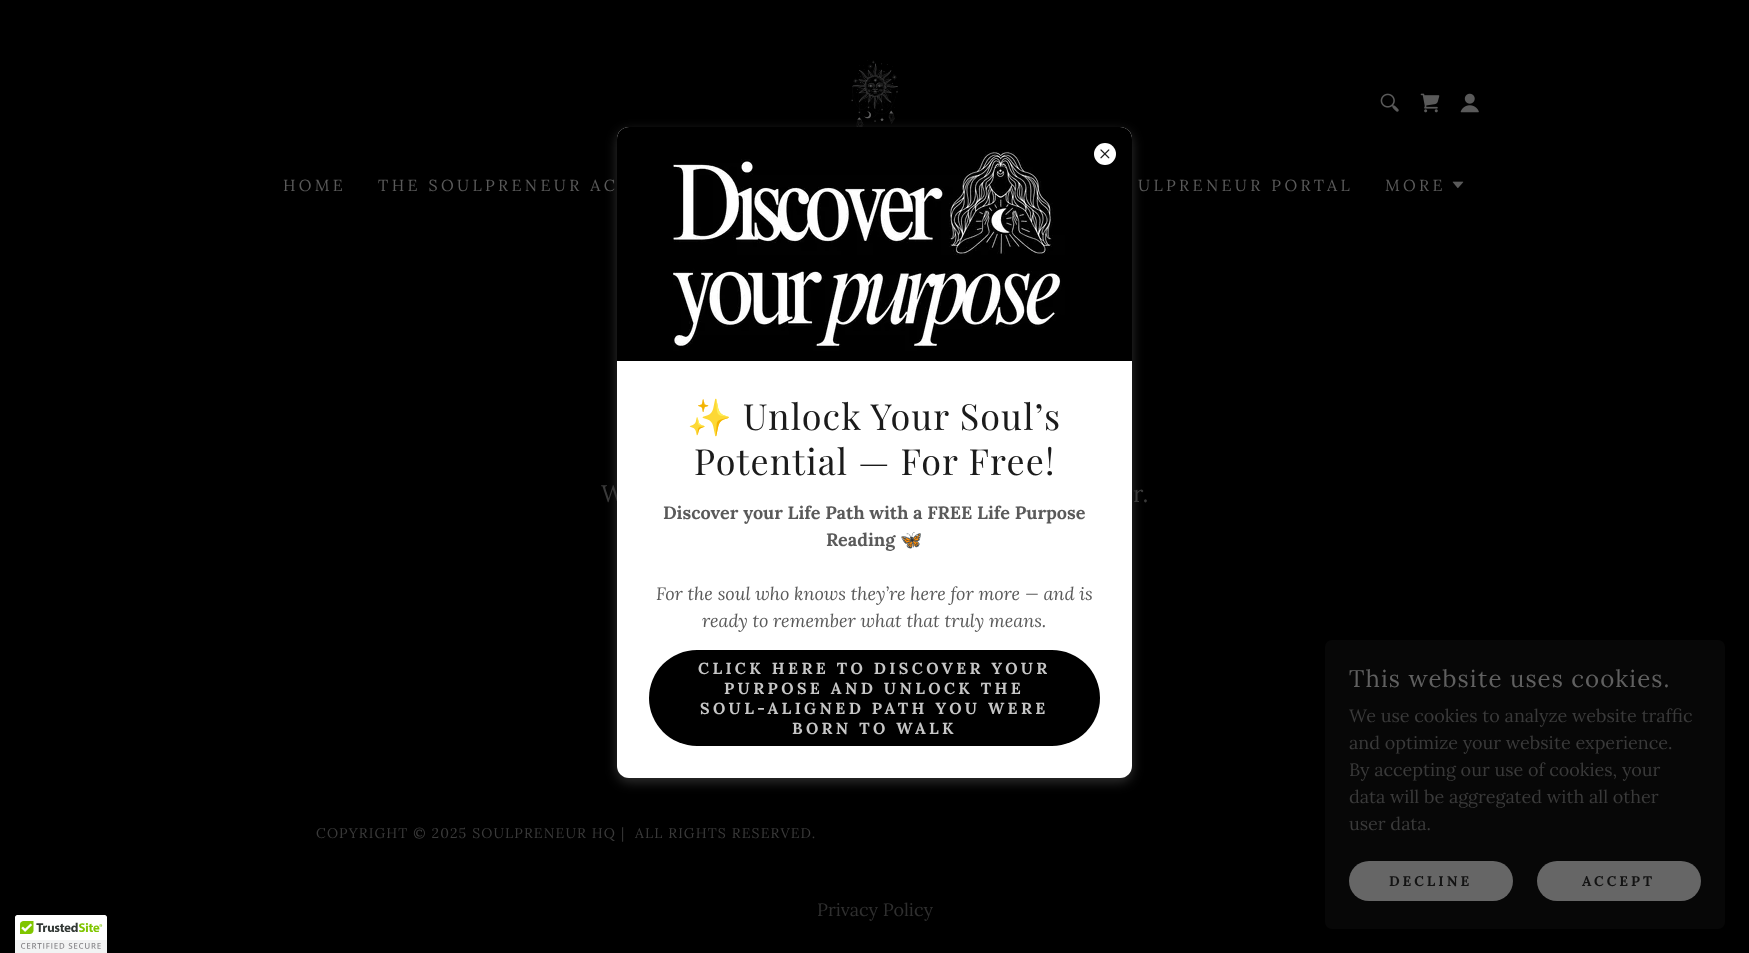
<?xml version="1.0" encoding="UTF-8"?>
<svg xmlns="http://www.w3.org/2000/svg" xmlns:xlink="http://www.w3.org/1999/xlink" width="1749" height="953">
  <rect width="100%" height="100%" fill="#000000" />
  <image x="851" y="60" width="47" height="67" xlink:href="image1.png" />
  <image x="1380" y="93" width="19" height="19" xlink:href="image2.png" />
  <image x="1420" y="93" width="20" height="20" xlink:href="image3.png" />
  <image x="1460" y="93" width="19" height="20" xlink:href="image4.png" />
  <image x="1452" y="181" width="12" height="8" xlink:href="image5.png" />
  <rect x="617" y="131" width="515" height="651" rx="12" fill="#757575" fill-opacity="0.4" filter="blur(6px)" />
  <rect x="1325" y="640" width="400" height="289" rx="7" fill="#070707" />
  <rect x="1349" y="861" width="164" height="40" rx="20" fill="#666666" />
  <rect x="1537" y="861" width="164" height="40" rx="20" fill="#666666" />
  <image x="15" y="915" width="92" height="38" xlink:href="image8.png" />
  <text x="283" y="191" style="font-family: Lora; font-size: 16px; letter-spacing: 3.4px; fill: #5a5a5a">HOME</text>
  <text x="378" y="191" style="font-family: Lora; font-size: 16px; letter-spacing: 3.4px; fill: #5a5a5a">THE SOULPRENEUR AC</text>
  <text x="1138" y="191" style="font-family: Lora; font-size: 16px; letter-spacing: 3.4px; fill: #5a5a5a">ULPRENEUR PORTAL</text>
  <text x="1385" y="191" style="font-family: Lora; font-size: 16px; letter-spacing: 3.4px; fill: #5a5a5a">MORE</text>
  <text x="601" y="502" style="font-family: Lora; font-size: 24px; fill: #3a3a3a">W</text>
  <rect x="617" y="127" width="515" height="651" rx="12" fill="#ffffff" />
  <image x="617" y="127" width="515" height="234" xlink:href="image7.png" />
  <circle cx="1105" cy="154" r="11" fill="#ffffff" />
  <image x="1100" y="149" width="10" height="10" xlink:href="image6.png" />
  <rect x="649" y="650" width="451" height="96" rx="48" fill="#000000" />
  <text x="792" y="734" style="font-family: Lora; font-size: 16px; font-weight: bold; letter-spacing: 3.4px; fill: #c6c6c6">BORN TO WALK</text>
  <text x="700" y="714" style="font-family: Lora; font-size: 16px; font-weight: bold; letter-spacing: 3.4px; fill: #c6c6c6">SOUL-ALIGNED PATH YOU WERE</text>
  <text x="724" y="694" style="font-family: Lora; font-size: 16px; font-weight: bold; letter-spacing: 3.4px; fill: #c6c6c6">PURPOSE AND UNLOCK THE</text>
  <text x="698" y="674" style="font-family: Lora; font-size: 16px; font-weight: bold; letter-spacing: 3.4px; fill: #c6c6c6">CLICK HERE TO DISCOVER YOUR</text>
  <text x="702" y="627" style="font-family: Lora; font-size: 18px; font-style: italic; fill: #5a5a5a">ready to remember what that truly means.</text>
  <text x="656" y="600" style="font-family: Lora; font-size: 18px; font-style: italic; fill: #5a5a5a">For the soul who knows they’re here for more — and is</text>
  <text x="900" y="546" style="font-family: Noto Color Emoji; font-size: 18px; font-weight: bold; fill: #5a5a5a">🦋</text>
  <text x="826" y="546" style="font-family: Lora; font-size: 18px; font-weight: bold; fill: #5a5a5a">Reading</text>
  <text x="663" y="519" style="font-family: Lora; font-size: 18px; font-weight: bold; fill: #5a5a5a">Discover your Life Path with a FREE Life Purpose</text>
  <text x="694" y="475" style="font-family: Playfair Display; font-size: 36px; letter-spacing: 1.1px; fill: #1b1b1b">Potential — For Free!</text>
  <text x="743" y="430" style="font-family: Playfair Display; font-size: 36px; letter-spacing: 1.1px; fill: #1b1b1b">Unlock Your Soul’s</text>
  <text x="687" y="430" style="font-family: Noto Color Emoji; font-size: 36px; letter-spacing: 1.1px; fill: #1b1b1b">✨</text>
  <text x="1133" y="502" style="font-family: Lora; font-size: 24px; fill: #3a3a3a">r.</text>
  <text x="316" y="838" style="font-family: Lora; font-size: 14px; letter-spacing: 1.15px; fill: #3a3a3a" xml:space="preserve">COPYRIGHT © 2025 SOULPRENEUR HQ |  ALL RIGHTS RESERVED.</text>
  <text x="817" y="916" style="font-family: Lora; font-size: 18px; fill: #2f2f2f">Privacy Policy</text>
  <text x="1349" y="687" style="font-family: Lora; font-size: 24px; letter-spacing: 1.1px; fill: #606060">This website uses cookies.</text>
  <text x="1349" y="722" style="font-family: Lora; font-size: 18px; fill: #3a3a3a">We use cookies to analyze website traffic</text>
  <text x="1349" y="749" style="font-family: Lora; font-size: 18px; fill: #3a3a3a">and optimize your website experience.</text>
  <text x="1349" y="776" style="font-family: Lora; font-size: 18px; fill: #3a3a3a">By accepting our use of cookies, your</text>
  <text x="1349" y="803" style="font-family: Lora; font-size: 18px; fill: #3a3a3a">data will be aggregated with all other</text>
  <text x="1349" y="830" style="font-family: Lora; font-size: 18px; fill: #3a3a3a">user data.</text>
  <text x="1389" y="886" style="font-family: Lora; font-size: 14px; font-weight: bold; letter-spacing: 3px; fill: #131313">DECLINE</text>
  <text x="1582" y="886" style="font-family: Lora; font-size: 14px; font-weight: bold; letter-spacing: 3px; fill: #131313">ACCEPT</text>
</svg>
